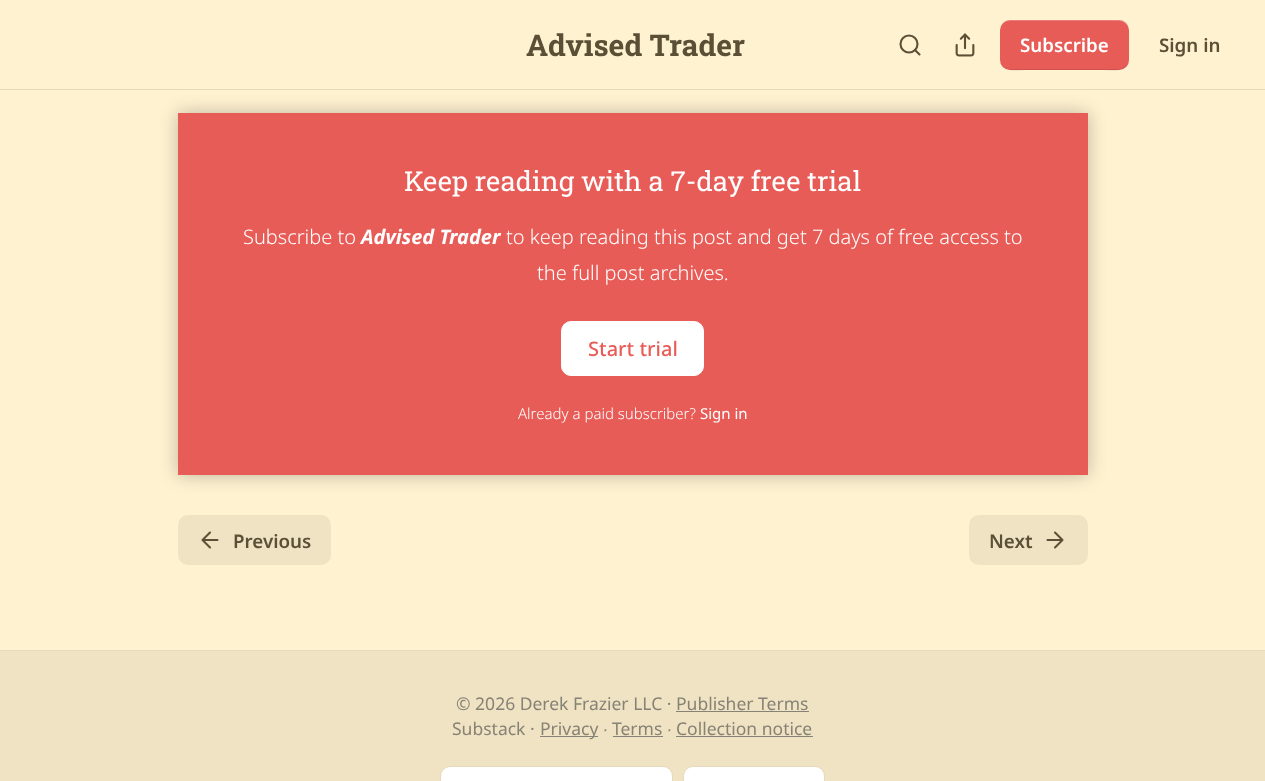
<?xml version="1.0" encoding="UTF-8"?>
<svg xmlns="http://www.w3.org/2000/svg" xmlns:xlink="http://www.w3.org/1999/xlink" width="1265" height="781">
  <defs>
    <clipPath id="clip1"><path d="M 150 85 h 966 v 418 h -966 z m 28 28 h 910 v 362 h -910 z" clip-rule="evenodd" /></clipPath>
  </defs>
  <rect width="100%" height="100%" fill="#fff2d1" />
  <rect x="178" y="113" width="910" height="362" fill="#e85c57" />
  <rect x="561.5" y="321.5" width="142" height="54" rx="9.5" fill="#ffffff" stroke="#ffffff" />
  <g clip-path="url(#clip1)">
    <rect x="178" y="113" width="910" height="362" fill="#000000" fill-opacity="0.25" filter="blur(9px)" />
  </g>
  <rect y="89" width="1265" height="1" fill="#e6dabc" />
  <circle cx="909" cy="44" r="8.5" fill="none" stroke="#5b5036" stroke-width="2.1" />
  <path d="M 919.5 54.5 l -4.5 -4.5" fill="none" stroke="#5b5036" stroke-width="2.1" stroke-linecap="round" stroke-linejoin="round" />
  <image x="955" y="33" width="20" height="24" xlink:href="image1.png" />
  <rect x="1000" y="20" width="129" height="50" rx="10" fill="#e85c57" />
  <path d="M 1000 59 c 0 15 18 11 28 11 h 73 c 10 0 28 4 28 -11 c 0 5 -5 10 -10 10 h -109 c -6 0 -10 -5 -10 -10 z" fill="#000000" fill-opacity="0.1" />
  <path d="M 1010 21 h 109 c 5 0 10 5 10 10 c 0 -15 -18 -11 -28 -11 h -73 c -10 0 -28 -4 -28 11 c 0 -5 4 -10 10 -10 z" fill="#ffffff" fill-opacity="0.2" />
  <rect x="178" y="515" width="153" height="50" rx="10" fill="#f0e3c4" />
  <path d="M 210 547.5 l -7.5 -7.5 l 7.5 -7.5 m 7.5 7.5 h -15" fill="none" stroke="#5b5036" stroke-width="2.1" stroke-linecap="round" stroke-linejoin="round" />
  <rect x="969" y="515" width="119" height="50" rx="10" fill="#f0e3c4" />
  <path d="M 1047.5 540 h 15 m -7.5 -7.5 l 7.5 7.5 l -7.5 7.5" fill="none" stroke="#5b5036" stroke-width="2.1" stroke-linecap="round" stroke-linejoin="round" />
  <rect y="651" width="1265" height="130" fill="#f0e3c4" />
  <rect y="650" width="1265" height="1" fill="#e6dabc" />
  <rect x="676" y="711" width="133" height="1" fill="#868275" />
  <rect x="540" y="736" width="58" height="1" fill="#868275" />
  <rect x="613" y="736" width="50" height="1" fill="#868275" />
  <rect x="676" y="736" width="137" height="1" fill="#868275" />
  <rect x="440.5" y="766.5" width="232" height="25" rx="9.5" fill="#ffffff" stroke="#e6dabc" />
  <rect x="683.5" y="766.5" width="141" height="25" rx="9.5" fill="#ffffff" stroke="#e6dabc" />
  <text x="526" y="56" style="font-family: Roboto Slab; font-size: 30px; font-weight: bold; fill: #5b5036">Advised Trader</text>
  <text x="1020" y="52" style="font-family: Noto Sans; font-size: 18.75px; font-weight: 600; fill: #ffffff">Subscribe</text>
  <text x="1159" y="52" style="font-family: Noto Sans; font-size: 18.75px; font-weight: 600; fill: #5b5036">Sign in</text>
  <text x="404" y="191" style="font-family: Roboto Slab; font-size: 27.5px; fill: #ffffff">Keep reading with a 7-day free trial</text>
  <text x="243" y="244" style="font-family: Noto Sans; font-size: 20px; font-weight: 300; fill: #ffffff">Subscribe to</text>
  <text x="361" y="244" style="font-family: Noto Sans; font-size: 20px; font-weight: bold; font-style: italic; fill: #ffffff">Advised Trader</text>
  <text x="506" y="244" style="font-family: Noto Sans; font-size: 20px; font-weight: 300; fill: #ffffff">to keep reading this post and get 7 days of free access to</text>
  <text x="537" y="280" style="font-family: Noto Sans; font-size: 20px; font-weight: 300; fill: #ffffff">the full post archives.</text>
  <text x="588" y="356" style="font-family: Noto Sans; font-size: 20px; font-weight: 500; fill: #e85c57">Start trial</text>
  <text x="518" y="419" style="font-family: Noto Sans; font-size: 15px; font-weight: 300; fill: #ffffff">Already a paid subscriber?</text>
  <text x="700" y="419" style="font-family: Noto Sans; font-size: 15px; fill: #ffffff">Sign in</text>
  <text x="233" y="548" style="font-family: Noto Sans; font-size: 18.75px; font-weight: 600; fill: #5b5036">Previous</text>
  <text x="989" y="548" style="font-family: Noto Sans; font-size: 18.75px; font-weight: 600; fill: #5b5036">Next</text>
  <text x="456" y="710" style="font-family: Noto Sans; font-size: 17.5px; fill: #868275">© 2026 Derek Frazier LLC · Publisher Terms</text>
  <text x="452" y="735" style="font-family: Noto Sans; font-size: 17.5px; fill: #868275">Substack ·</text>
  <text x="540" y="735" style="font-family: Noto Sans; font-size: 17.5px; fill: #868275">Privacy</text>
  <text x="603" y="735" style="font-family: Liberation Sans; font-size: 17.5px; fill: #868275">∙</text>
  <text x="612" y="735" style="font-family: Noto Sans; font-size: 17.5px; fill: #868275">Terms</text>
  <text x="667" y="735" style="font-family: Liberation Sans; font-size: 17.5px; fill: #868275">∙</text>
  <text x="676" y="735" style="font-family: Noto Sans; font-size: 17.5px; fill: #868275">Collection notice</text>
</svg>
